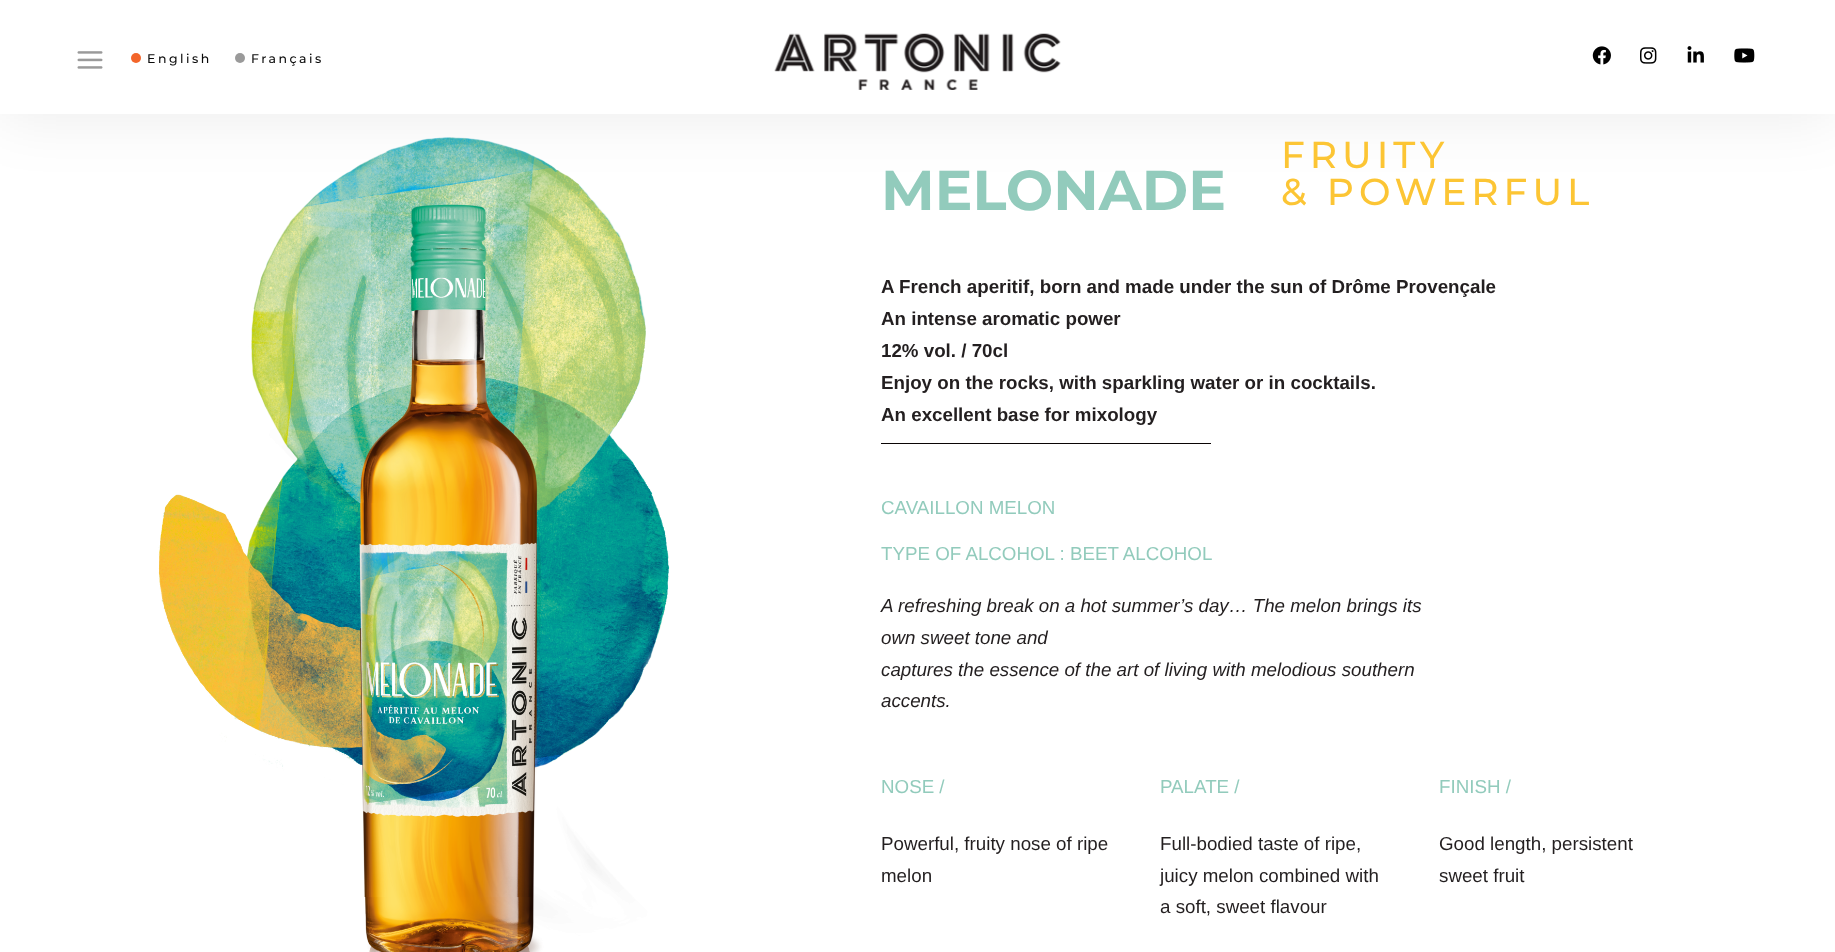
<?xml version="1.0" encoding="UTF-8"?>
<svg xmlns="http://www.w3.org/2000/svg" xmlns:xlink="http://www.w3.org/1999/xlink" width="1835" height="952">
  <rect width="100%" height="100%" fill="#ffffff" />
  <image x="158" y="137" width="512" height="815" xlink:href="image7.png" />
  <rect y="3" width="1835" height="113" fill="#000000" fill-opacity="0.08" filter="blur(31px)" />
  <rect width="1835" height="114" fill="#ffffff" />
  <image x="77" y="51" width="26" height="18" xlink:href="image1.png" />
  <circle cx="136" cy="58" r="5" fill="#f3652a" />
  <circle cx="240" cy="58" r="5" fill="#9a9a9a" />
  <image x="774" y="33" width="287" height="57" xlink:href="image2.png" />
  <image x="1592" y="46" width="19" height="19" xlink:href="image3.png" />
  <image x="1640" y="47" width="17" height="17" xlink:href="image4.png" />
  <image x="1687" y="46" width="17" height="17" xlink:href="image5.png" />
  <image x="1734" y="48" width="21" height="15" xlink:href="image6.png" />
  <rect x="881" y="443" width="330" height="1" fill="#0a0505" />
  <text x="147" y="63" style="font-family: Montserrat; font-size: 12.5px; font-weight: 500; letter-spacing: 2.5px; fill: #0a0a0a">English</text>
  <text x="251" y="63" style="font-family: Montserrat; font-size: 12.5px; font-weight: 500; letter-spacing: 2.5px; fill: #0a0a0a">Français</text>
  <text x="881" y="210" style="font-family: Montserrat; font-size: 56.25px; font-weight: bold; fill: #92cbbc">MELONADE</text>
  <text x="1281" y="168" style="font-family: Montserrat; font-size: 37.5px; font-weight: 500; letter-spacing: 5px; fill: #fcc534">FRUITY</text>
  <text x="1281" y="205" style="font-family: Montserrat; font-size: 37.5px; font-weight: 500; letter-spacing: 5px; fill: #fcc534">&amp; POWERFUL</text>
  <text x="881" y="293" style="font-family: Liberation Sans; font-size: 18.75px; font-weight: bold; fill: #231f20">A French aperitif, born and made under the sun of Drôme Provençale</text>
  <text x="881" y="325" style="font-family: Liberation Sans; font-size: 18.75px; font-weight: bold; fill: #231f20">An intense aromatic power</text>
  <text x="881" y="357" style="font-family: Liberation Sans; font-size: 18.75px; font-weight: bold; fill: #231f20">12% vol. / 70cl</text>
  <text x="881" y="389" style="font-family: Liberation Sans; font-size: 18.75px; font-weight: bold; fill: #231f20">Enjoy on the rocks, with sparkling water or in cocktails.</text>
  <text x="881" y="421" style="font-family: Liberation Sans; font-size: 18.75px; font-weight: bold; fill: #231f20">An excellent base for mixology</text>
  <text x="881" y="514" style="font-family: Liberation Sans; font-size: 18.75px; fill: #92cbbc">CAVAILLON MELON</text>
  <text x="881" y="560" style="font-family: Liberation Sans; font-size: 18.75px; fill: #92cbbc">TYPE OF ALCOHOL : BEET ALCOHOL</text>
  <text x="881" y="612" style="font-family: Liberation Sans; font-size: 18.75px; font-style: italic; fill: #231f20">A refreshing break on a hot summer’s day… The melon brings its</text>
  <text x="881" y="644" style="font-family: Liberation Sans; font-size: 18.75px; font-style: italic; fill: #231f20">own sweet tone and</text>
  <text x="881" y="676" style="font-family: Liberation Sans; font-size: 18.75px; font-style: italic; fill: #231f20">captures the essence of the art of living with melodious southern</text>
  <text x="881" y="707" style="font-family: Liberation Sans; font-size: 18.75px; font-style: italic; fill: #231f20">accents.</text>
  <text x="881" y="793" style="font-family: Liberation Sans; font-size: 18.75px; fill: #92cbbc">NOSE /</text>
  <text x="881" y="850" style="font-family: Liberation Sans; font-size: 18.75px; fill: #231f20">Powerful, fruity nose of ripe</text>
  <text x="881" y="882" style="font-family: Liberation Sans; font-size: 18.75px; fill: #231f20">melon</text>
  <text x="1160" y="793" style="font-family: Liberation Sans; font-size: 18.75px; fill: #92cbbc">PALATE /</text>
  <text x="1160" y="850" style="font-family: Liberation Sans; font-size: 18.75px; fill: #231f20">Full-bodied taste of ripe,</text>
  <text x="1160" y="882" style="font-family: Liberation Sans; font-size: 18.75px; fill: #231f20">juicy melon combined with</text>
  <text x="1160" y="913" style="font-family: Liberation Sans; font-size: 18.75px; fill: #231f20">a soft, sweet flavour</text>
  <text x="1439" y="793" style="font-family: Liberation Sans; font-size: 18.75px; fill: #92cbbc">FINISH /</text>
  <text x="1439" y="850" style="font-family: Liberation Sans; font-size: 18.75px; fill: #231f20">Good length, persistent</text>
  <text x="1439" y="882" style="font-family: Liberation Sans; font-size: 18.75px; fill: #231f20">sweet fruit</text>
</svg>
